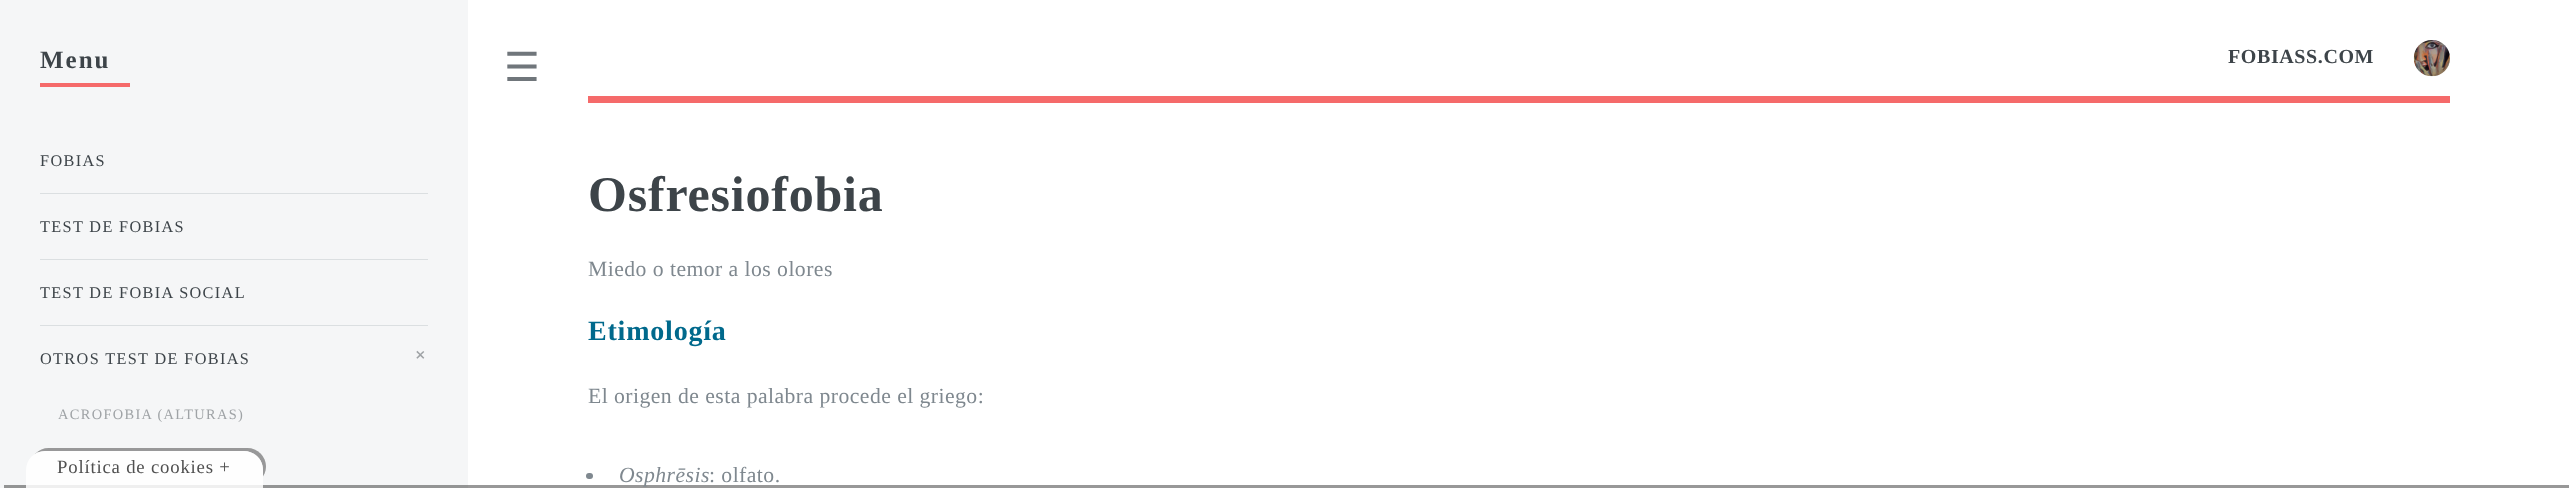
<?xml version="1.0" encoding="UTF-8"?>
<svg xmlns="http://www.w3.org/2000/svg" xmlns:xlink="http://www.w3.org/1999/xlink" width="2569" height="488">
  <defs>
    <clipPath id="clip1"><path d="M 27 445 h 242 v 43 h -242 z m 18 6 h 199 c 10.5 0 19 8.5 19 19 v 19 h -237 v -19 c 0 -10.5 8.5 -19 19 -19 z" clip-rule="evenodd" /></clipPath>
  </defs>
  <rect width="100%" height="100%" fill="#ffffff" />
  <rect width="468" height="488" fill="#f5f6f7" />
  <rect x="40" y="83" width="90" height="4" fill="#f56a6a" />
  <rect x="40" y="193" width="388" height="1" fill="#dbdfe1" />
  <rect x="40" y="259" width="388" height="1" fill="#dbdfe1" />
  <rect x="40" y="325" width="388" height="1" fill="#dbdfe1" />
  <rect x="588" y="96" width="1862" height="7" fill="#f56a6a" />
  <image x="2413" y="40" width="37" height="37" xlink:href="image1.png" />
  <rect x="586" y="473" width="7" height="6" rx="3" fill="#7f888f" />
  <rect x="4" y="485" width="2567" height="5" fill="#323232" fill-opacity="0.5" filter="blur(0.5px)" />
  <g clip-path="url(#clip1)">
    <rect x="30" y="448" width="236" height="37" rx="18.5" fill="#323232" fill-opacity="0.48" filter="blur(0.5px)" />
  </g>
  <path d="M 45 451 h 199 c 10.5 0 19 8.5 19 19 v 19 h -237 v -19 c 0 -10.5 8.5 -19 19 -19 z" fill="#ffffff" fill-opacity="0.85" />
  <text x="40" y="68" style="font-family: Liberation Serif; font-size: 25px; font-weight: bold; letter-spacing: 2px; fill: #3d4449">Menu</text>
  <text x="40" y="166" style="font-family: Liberation Serif; font-size: 16.25px; letter-spacing: 1.35px; fill: #3d4449">FOBIAS</text>
  <text x="40" y="232" style="font-family: Liberation Serif; font-size: 16.25px; letter-spacing: 1.35px; fill: #3d4449">TEST DE FOBIAS</text>
  <text x="40" y="298" style="font-family: Liberation Serif; font-size: 16.25px; letter-spacing: 1.35px; fill: #3d4449">TEST DE FOBIA SOCIAL</text>
  <text x="40" y="364" style="font-family: Liberation Serif; font-size: 16.25px; letter-spacing: 1.35px; fill: #3d4449">OTROS TEST DE FOBIAS</text>
  <text x="421" y="364" transform="rotate(-45 421 364)" style="font-family: Liberation Serif; font-size: 21px; font-weight: bold; letter-spacing: 1.35px; fill: #9fa3a6">+</text>
  <text x="58" y="419" style="font-family: Liberation Serif; font-size: 14.4px; letter-spacing: 1.35px; fill: #9fa3a6">ACROFOBIA (ALTURAS)</text>
  <text x="504" y="81" style="font-family: DejaVu Sans; font-size: 40px; letter-spacing: 0.8px; fill: #70767b">☰</text>
  <text x="2228" y="63" style="font-family: Liberation Serif; font-size: 20px; font-weight: bold; letter-spacing: 0.6px; fill: #3d4449">FOBIASS.COM</text>
  <text x="588" y="211" style="font-family: Liberation Serif; font-size: 50px; font-weight: bold; letter-spacing: 0.8px; fill: #3d4449">Osfresiofobia</text>
  <text x="588" y="276" style="font-family: Liberation Serif; font-size: 21.7px; letter-spacing: 0.45px; fill: #7f888f">Miedo o temor a los olores</text>
  <text x="588" y="340" style="font-family: Liberation Serif; font-size: 28px; font-weight: bold; letter-spacing: 0.8px; fill: #00698c">Etimología</text>
  <text x="588" y="403" style="font-family: Liberation Serif; font-size: 21.7px; letter-spacing: 0.45px; fill: #7f888f">El origen de esta palabra procede el griego:</text>
  <text x="619" y="482" style="font-family: Liberation Serif; font-size: 21.7px; font-style: italic; letter-spacing: 0.45px; fill: #7f888f">Osphrēsis</text>
  <text x="709" y="482" style="font-family: Liberation Serif; font-size: 21.7px; letter-spacing: 0.45px; fill: #7f888f">: olfato.</text>
  <text x="57" y="473" style="font-family: Liberation Serif; font-size: 18.75px; letter-spacing: 0.8px; fill: #505050">Política de cookies +</text>
</svg>
